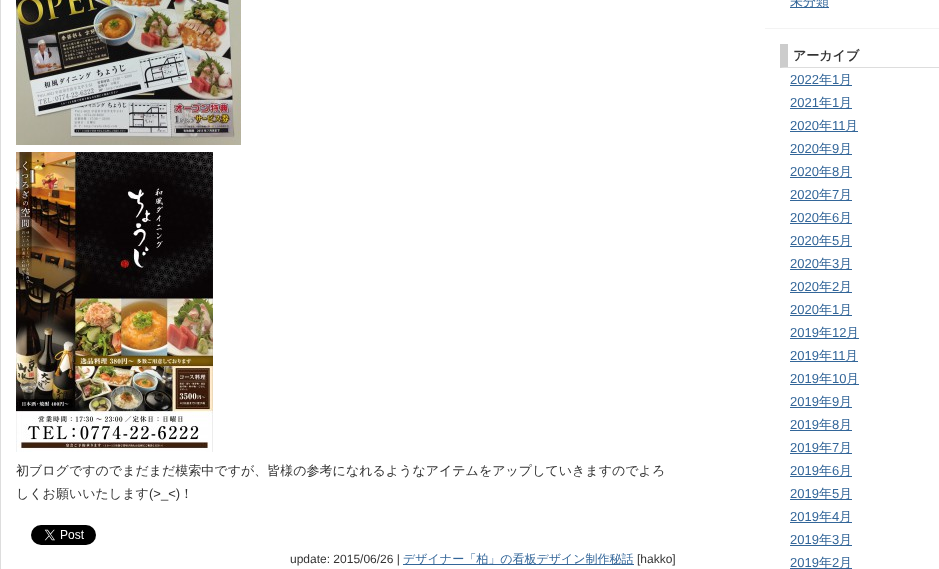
<?xml version="1.0" encoding="UTF-8"?>
<svg xmlns="http://www.w3.org/2000/svg" xmlns:xlink="http://www.w3.org/1999/xlink" width="939" height="569">
  <rect width="100%" height="100%" fill="#ffffff" />
  <rect width="1" height="569" fill="#dddddd" />
  <image x="16" y="0" width="225" height="145" xlink:href="image1.png" />
  <image x="16" y="152" width="197" height="300" xlink:href="image2.png" />
  <image x="31" y="525" width="65" height="20" xlink:href="image3.png" />
  <rect x="403" y="564" width="231" height="1" fill="#336699" />
  <rect x="765" y="28" width="174" height="1" fill="#f3f3f3" />
  <rect x="790" y="7" width="39" height="1" fill="#336699" />
  <path d="M 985 68 h -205 l 8 -1 h 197 z" fill="#dddddd" />
  <path d="M 780 68 v -24 h 8 v 23 z" fill="#cccccc" />
  <rect x="790" y="85" width="62" height="1" fill="#336699" />
  <rect x="790" y="108" width="62" height="1" fill="#336699" />
  <rect x="790" y="131" width="68" height="1" fill="#336699" />
  <rect x="790" y="154" width="62" height="1" fill="#336699" />
  <rect x="790" y="177" width="62" height="1" fill="#336699" />
  <rect x="790" y="200" width="62" height="1" fill="#336699" />
  <rect x="790" y="223" width="62" height="1" fill="#336699" />
  <rect x="790" y="246" width="62" height="1" fill="#336699" />
  <rect x="790" y="269" width="62" height="1" fill="#336699" />
  <rect x="790" y="292" width="62" height="1" fill="#336699" />
  <rect x="790" y="315" width="62" height="1" fill="#336699" />
  <rect x="790" y="338" width="69" height="1" fill="#336699" />
  <rect x="790" y="361" width="68" height="1" fill="#336699" />
  <rect x="790" y="384" width="69" height="1" fill="#336699" />
  <rect x="790" y="407" width="62" height="1" fill="#336699" />
  <rect x="790" y="430" width="62" height="1" fill="#336699" />
  <rect x="790" y="453" width="62" height="1" fill="#336699" />
  <rect x="790" y="476" width="62" height="1" fill="#336699" />
  <rect x="790" y="499" width="62" height="1" fill="#336699" />
  <rect x="790" y="522" width="62" height="1" fill="#336699" />
  <rect x="790" y="545" width="62" height="1" fill="#336699" />
  <rect x="790" y="568" width="62" height="1" fill="#336699" />
  <text x="16" y="475" style="font-family: WenQuanYi Zen Hei; font-size: 13px; font-weight: 500; fill: #333333">初ブログですのでまだまだ模索中ですが、皆様の参考になれるようなアイテムをアップしていきますのでよろ</text>
  <text x="16" y="498" style="font-family: WenQuanYi Zen Hei; font-size: 13px; font-weight: 500; fill: #333333">しくお願いいたします</text>
  <text x="149" y="498" style="font-family: Liberation Sans; font-size: 13px; fill: #333333">(&gt;_&lt;)</text>
  <text x="180" y="498" style="font-family: WenQuanYi Zen Hei; font-size: 13px; font-weight: 500; fill: #333333">！</text>
  <text x="290" y="563" style="font-family: Liberation Sans; font-size: 12px; fill: #333333">update: 2015/06/26 |</text>
  <text x="403" y="563" style="font-family: WenQuanYi Zen Hei; font-size: 12px; font-weight: 500; fill: #336699">デザイナー「柏」の看板デザイン制作秘話</text>
  <text x="637" y="563" style="font-family: Liberation Sans; font-size: 12px; fill: #333333">[hakko]</text>
  <text x="790" y="6" style="font-family: WenQuanYi Zen Hei; font-size: 13px; font-weight: 500; fill: #336699">未分類</text>
  <text x="793" y="60" style="font-family: WenQuanYi Zen Hei; font-size: 13px; font-weight: bold; fill: #333333">アーカイブ</text>
  <text x="790" y="84" style="font-family: Liberation Sans; font-size: 13px; fill: #336699">2022</text>
  <text x="819" y="84" style="font-family: WenQuanYi Zen Hei; font-size: 13px; font-weight: 500; fill: #336699">年</text>
  <text x="832" y="84" style="font-family: Liberation Sans; font-size: 13px; fill: #336699">1</text>
  <text x="839" y="84" style="font-family: WenQuanYi Zen Hei; font-size: 13px; font-weight: 500; fill: #336699">月</text>
  <text x="790" y="107" style="font-family: Liberation Sans; font-size: 13px; fill: #336699">2021</text>
  <text x="819" y="107" style="font-family: WenQuanYi Zen Hei; font-size: 13px; font-weight: 500; fill: #336699">年</text>
  <text x="832" y="107" style="font-family: Liberation Sans; font-size: 13px; fill: #336699">1</text>
  <text x="839" y="107" style="font-family: WenQuanYi Zen Hei; font-size: 13px; font-weight: 500; fill: #336699">月</text>
  <text x="790" y="130" style="font-family: Liberation Sans; font-size: 13px; fill: #336699">2020</text>
  <text x="819" y="130" style="font-family: WenQuanYi Zen Hei; font-size: 13px; font-weight: 500; fill: #336699">年</text>
  <text x="832" y="130" style="font-family: Liberation Sans; font-size: 13px; fill: #336699">11</text>
  <text x="845" y="130" style="font-family: WenQuanYi Zen Hei; font-size: 13px; font-weight: 500; fill: #336699">月</text>
  <text x="790" y="153" style="font-family: Liberation Sans; font-size: 13px; fill: #336699">2020</text>
  <text x="819" y="153" style="font-family: WenQuanYi Zen Hei; font-size: 13px; font-weight: 500; fill: #336699">年</text>
  <text x="832" y="153" style="font-family: Liberation Sans; font-size: 13px; fill: #336699">9</text>
  <text x="839" y="153" style="font-family: WenQuanYi Zen Hei; font-size: 13px; font-weight: 500; fill: #336699">月</text>
  <text x="790" y="176" style="font-family: Liberation Sans; font-size: 13px; fill: #336699">2020</text>
  <text x="819" y="176" style="font-family: WenQuanYi Zen Hei; font-size: 13px; font-weight: 500; fill: #336699">年</text>
  <text x="832" y="176" style="font-family: Liberation Sans; font-size: 13px; fill: #336699">8</text>
  <text x="839" y="176" style="font-family: WenQuanYi Zen Hei; font-size: 13px; font-weight: 500; fill: #336699">月</text>
  <text x="790" y="199" style="font-family: Liberation Sans; font-size: 13px; fill: #336699">2020</text>
  <text x="819" y="199" style="font-family: WenQuanYi Zen Hei; font-size: 13px; font-weight: 500; fill: #336699">年</text>
  <text x="832" y="199" style="font-family: Liberation Sans; font-size: 13px; fill: #336699">7</text>
  <text x="839" y="199" style="font-family: WenQuanYi Zen Hei; font-size: 13px; font-weight: 500; fill: #336699">月</text>
  <text x="790" y="222" style="font-family: Liberation Sans; font-size: 13px; fill: #336699">2020</text>
  <text x="819" y="222" style="font-family: WenQuanYi Zen Hei; font-size: 13px; font-weight: 500; fill: #336699">年</text>
  <text x="832" y="222" style="font-family: Liberation Sans; font-size: 13px; fill: #336699">6</text>
  <text x="839" y="222" style="font-family: WenQuanYi Zen Hei; font-size: 13px; font-weight: 500; fill: #336699">月</text>
  <text x="790" y="245" style="font-family: Liberation Sans; font-size: 13px; fill: #336699">2020</text>
  <text x="819" y="245" style="font-family: WenQuanYi Zen Hei; font-size: 13px; font-weight: 500; fill: #336699">年</text>
  <text x="832" y="245" style="font-family: Liberation Sans; font-size: 13px; fill: #336699">5</text>
  <text x="839" y="245" style="font-family: WenQuanYi Zen Hei; font-size: 13px; font-weight: 500; fill: #336699">月</text>
  <text x="790" y="268" style="font-family: Liberation Sans; font-size: 13px; fill: #336699">2020</text>
  <text x="819" y="268" style="font-family: WenQuanYi Zen Hei; font-size: 13px; font-weight: 500; fill: #336699">年</text>
  <text x="832" y="268" style="font-family: Liberation Sans; font-size: 13px; fill: #336699">3</text>
  <text x="839" y="268" style="font-family: WenQuanYi Zen Hei; font-size: 13px; font-weight: 500; fill: #336699">月</text>
  <text x="790" y="291" style="font-family: Liberation Sans; font-size: 13px; fill: #336699">2020</text>
  <text x="819" y="291" style="font-family: WenQuanYi Zen Hei; font-size: 13px; font-weight: 500; fill: #336699">年</text>
  <text x="832" y="291" style="font-family: Liberation Sans; font-size: 13px; fill: #336699">2</text>
  <text x="839" y="291" style="font-family: WenQuanYi Zen Hei; font-size: 13px; font-weight: 500; fill: #336699">月</text>
  <text x="790" y="314" style="font-family: Liberation Sans; font-size: 13px; fill: #336699">2020</text>
  <text x="819" y="314" style="font-family: WenQuanYi Zen Hei; font-size: 13px; font-weight: 500; fill: #336699">年</text>
  <text x="832" y="314" style="font-family: Liberation Sans; font-size: 13px; fill: #336699">1</text>
  <text x="839" y="314" style="font-family: WenQuanYi Zen Hei; font-size: 13px; font-weight: 500; fill: #336699">月</text>
  <text x="790" y="337" style="font-family: Liberation Sans; font-size: 13px; fill: #336699">2019</text>
  <text x="819" y="337" style="font-family: WenQuanYi Zen Hei; font-size: 13px; font-weight: 500; fill: #336699">年</text>
  <text x="832" y="337" style="font-family: Liberation Sans; font-size: 13px; fill: #336699">12</text>
  <text x="846" y="337" style="font-family: WenQuanYi Zen Hei; font-size: 13px; font-weight: 500; fill: #336699">月</text>
  <text x="790" y="360" style="font-family: Liberation Sans; font-size: 13px; fill: #336699">2019</text>
  <text x="819" y="360" style="font-family: WenQuanYi Zen Hei; font-size: 13px; font-weight: 500; fill: #336699">年</text>
  <text x="832" y="360" style="font-family: Liberation Sans; font-size: 13px; fill: #336699">11</text>
  <text x="845" y="360" style="font-family: WenQuanYi Zen Hei; font-size: 13px; font-weight: 500; fill: #336699">月</text>
  <text x="790" y="383" style="font-family: Liberation Sans; font-size: 13px; fill: #336699">2019</text>
  <text x="819" y="383" style="font-family: WenQuanYi Zen Hei; font-size: 13px; font-weight: 500; fill: #336699">年</text>
  <text x="832" y="383" style="font-family: Liberation Sans; font-size: 13px; fill: #336699">10</text>
  <text x="846" y="383" style="font-family: WenQuanYi Zen Hei; font-size: 13px; font-weight: 500; fill: #336699">月</text>
  <text x="790" y="406" style="font-family: Liberation Sans; font-size: 13px; fill: #336699">2019</text>
  <text x="819" y="406" style="font-family: WenQuanYi Zen Hei; font-size: 13px; font-weight: 500; fill: #336699">年</text>
  <text x="832" y="406" style="font-family: Liberation Sans; font-size: 13px; fill: #336699">9</text>
  <text x="839" y="406" style="font-family: WenQuanYi Zen Hei; font-size: 13px; font-weight: 500; fill: #336699">月</text>
  <text x="790" y="429" style="font-family: Liberation Sans; font-size: 13px; fill: #336699">2019</text>
  <text x="819" y="429" style="font-family: WenQuanYi Zen Hei; font-size: 13px; font-weight: 500; fill: #336699">年</text>
  <text x="832" y="429" style="font-family: Liberation Sans; font-size: 13px; fill: #336699">8</text>
  <text x="839" y="429" style="font-family: WenQuanYi Zen Hei; font-size: 13px; font-weight: 500; fill: #336699">月</text>
  <text x="790" y="452" style="font-family: Liberation Sans; font-size: 13px; fill: #336699">2019</text>
  <text x="819" y="452" style="font-family: WenQuanYi Zen Hei; font-size: 13px; font-weight: 500; fill: #336699">年</text>
  <text x="832" y="452" style="font-family: Liberation Sans; font-size: 13px; fill: #336699">7</text>
  <text x="839" y="452" style="font-family: WenQuanYi Zen Hei; font-size: 13px; font-weight: 500; fill: #336699">月</text>
  <text x="790" y="475" style="font-family: Liberation Sans; font-size: 13px; fill: #336699">2019</text>
  <text x="819" y="475" style="font-family: WenQuanYi Zen Hei; font-size: 13px; font-weight: 500; fill: #336699">年</text>
  <text x="832" y="475" style="font-family: Liberation Sans; font-size: 13px; fill: #336699">6</text>
  <text x="839" y="475" style="font-family: WenQuanYi Zen Hei; font-size: 13px; font-weight: 500; fill: #336699">月</text>
  <text x="790" y="498" style="font-family: Liberation Sans; font-size: 13px; fill: #336699">2019</text>
  <text x="819" y="498" style="font-family: WenQuanYi Zen Hei; font-size: 13px; font-weight: 500; fill: #336699">年</text>
  <text x="832" y="498" style="font-family: Liberation Sans; font-size: 13px; fill: #336699">5</text>
  <text x="839" y="498" style="font-family: WenQuanYi Zen Hei; font-size: 13px; font-weight: 500; fill: #336699">月</text>
  <text x="790" y="521" style="font-family: Liberation Sans; font-size: 13px; fill: #336699">2019</text>
  <text x="819" y="521" style="font-family: WenQuanYi Zen Hei; font-size: 13px; font-weight: 500; fill: #336699">年</text>
  <text x="832" y="521" style="font-family: Liberation Sans; font-size: 13px; fill: #336699">4</text>
  <text x="839" y="521" style="font-family: WenQuanYi Zen Hei; font-size: 13px; font-weight: 500; fill: #336699">月</text>
  <text x="790" y="544" style="font-family: Liberation Sans; font-size: 13px; fill: #336699">2019</text>
  <text x="819" y="544" style="font-family: WenQuanYi Zen Hei; font-size: 13px; font-weight: 500; fill: #336699">年</text>
  <text x="832" y="544" style="font-family: Liberation Sans; font-size: 13px; fill: #336699">3</text>
  <text x="839" y="544" style="font-family: WenQuanYi Zen Hei; font-size: 13px; font-weight: 500; fill: #336699">月</text>
  <text x="790" y="567" style="font-family: Liberation Sans; font-size: 13px; fill: #336699">2019</text>
  <text x="819" y="567" style="font-family: WenQuanYi Zen Hei; font-size: 13px; font-weight: 500; fill: #336699">年</text>
  <text x="832" y="567" style="font-family: Liberation Sans; font-size: 13px; fill: #336699">2</text>
  <text x="839" y="567" style="font-family: WenQuanYi Zen Hei; font-size: 13px; font-weight: 500; fill: #336699">月</text>
</svg>
